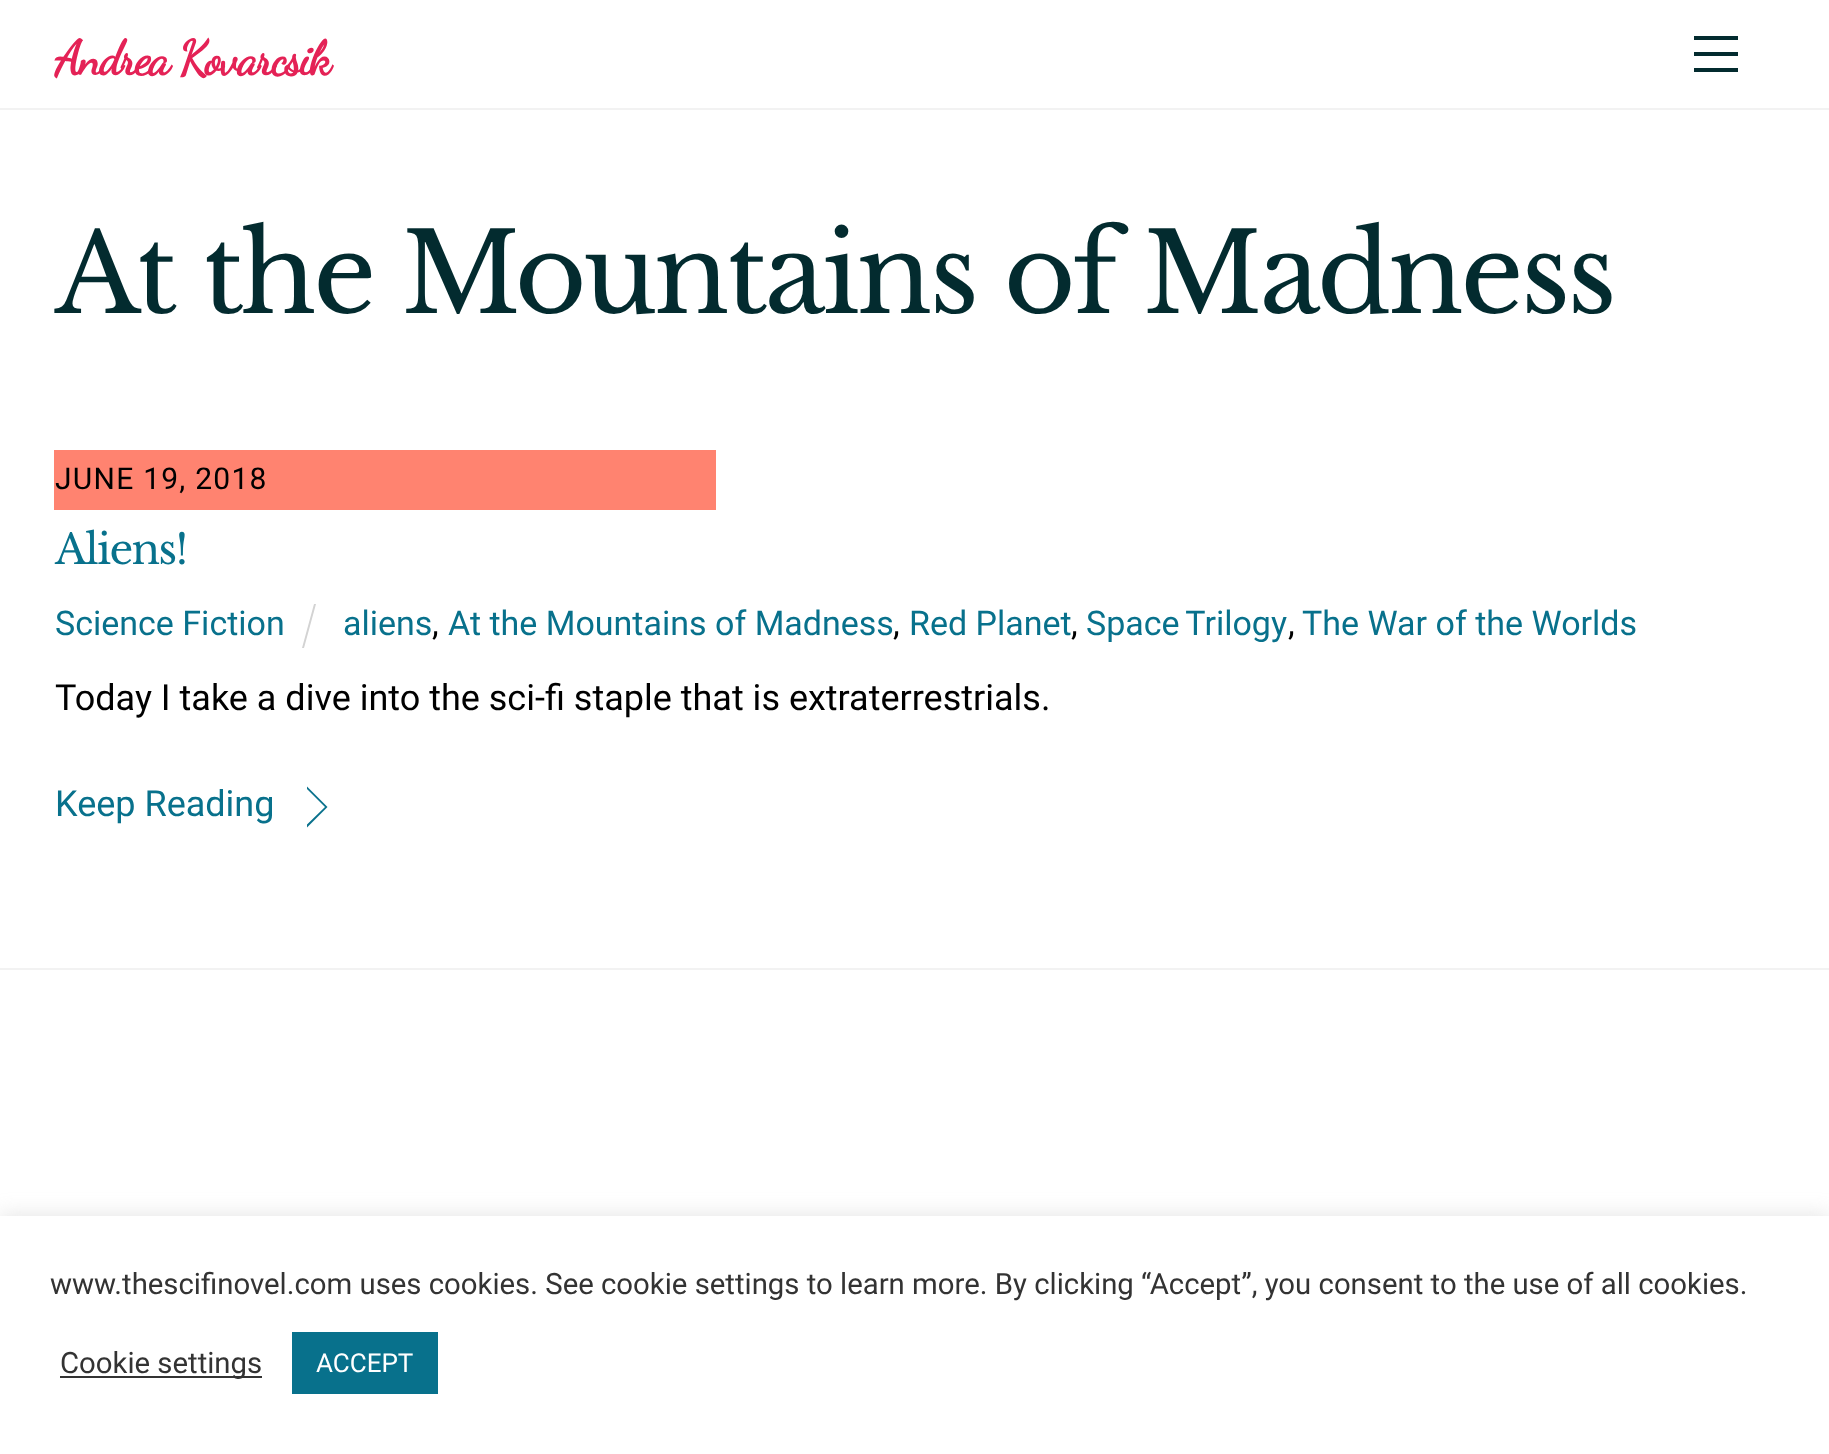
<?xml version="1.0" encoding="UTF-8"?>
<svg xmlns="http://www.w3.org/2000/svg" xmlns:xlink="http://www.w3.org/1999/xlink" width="1829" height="1454">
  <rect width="100%" height="100%" fill="#ffffff" />
  <rect y="108" width="1829" height="2" fill="#f2f2f2" />
  <rect x="1694" y="68" width="44" height="4" fill="#032b2f" />
  <rect x="1694" y="36" width="44" height="4" fill="#032b2f" />
  <rect x="1694" y="52" width="44" height="4" fill="#032b2f" />
  <rect x="54" y="450" width="662" height="60" fill="#ff8370" />
  <path d="M 314 604 h 2 l -12 44 h -2 z" fill="#d3d3d3" />
  <path d="M 307 786.5 l 20.5 20.5 h -2.5 l -18 -18 z m 20.5 20.5 l -20.5 20.5 v -3 l 18 -17.5 z" fill="#08718c" />
  <rect y="968" width="1829" height="2" fill="#f2f2f2" />
  <rect y="1214" width="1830" height="238" fill="#acabab" fill-opacity="0.3" filter="blur(10px)" />
  <rect y="1216" width="1829" height="238" fill="#ffffff" />
  <rect x="60" y="1376" width="202" height="2" fill="#333333" />
  <rect x="292" y="1332" width="146" height="62" fill="#08718c" />
  <text x="55" y="74" style="font-family: Dancing Script; font-size: 48px; font-weight: bold; letter-spacing: -1.9px; fill: #e42256">Andrea Kovarcsik</text>
  <text x="55" y="313" style="font-family: Libre Baskerville; font-size: 110px; letter-spacing: -3.3px; fill: #032b2f">At the Mountains of Madness</text>
  <text x="55" y="489" style="font-family: Roboto; font-size: 30px; letter-spacing: 1.25px; fill: #000000">JUNE 19, 2018</text>
  <text x="55" y="564" style="font-family: Libre Baskerville; font-size: 41.5px; letter-spacing: -1.75px; fill: #08718c">Aliens!</text>
  <text x="55" y="635" style="font-family: Roboto; font-size: 34px; fill: #08718c">Science Fiction</text>
  <text x="343" y="635" style="font-family: Roboto; font-size: 34px; fill: #08718c">aliens</text>
  <text x="432" y="635" style="font-family: Roboto; font-size: 34px; fill: #000000">,</text>
  <text x="448" y="635" style="font-family: Roboto; font-size: 34px; fill: #08718c">At the Mountains of Madness</text>
  <text x="893" y="635" style="font-family: Roboto; font-size: 34px; fill: #000000">,</text>
  <text x="909" y="635" style="font-family: Roboto; font-size: 34px; fill: #08718c">Red Planet</text>
  <text x="1071" y="635" style="font-family: Roboto; font-size: 34px; fill: #000000">,</text>
  <text x="1086" y="635" word-spacing="-2" style="font-family: Roboto; font-size: 34px; fill: #08718c">Space Trilogy</text>
  <text x="1288" y="635" style="font-family: Roboto; font-size: 34px; fill: #000000">,</text>
  <text x="1302" y="635" style="font-family: Roboto; font-size: 34px; fill: #08718c">The War of the Worlds</text>
  <text x="55" y="710" style="font-family: Roboto; font-size: 36px; fill: #000000">Today I take a dive into the sci-fi staple that is extraterrestrials.</text>
  <text x="55" y="816" style="font-family: Roboto; font-size: 36px; fill: #08718c">Keep Reading</text>
  <text x="50" y="1294" style="font-family: Roboto; font-size: 29.33px; fill: #333333">www.thescifinovel.com uses cookies. See cookie settings to learn more. By clicking “Accept”, you consent to the use of all cookies.</text>
  <text x="60" y="1373" style="font-family: Roboto; font-size: 29.33px; fill: #333333">Cookie settings</text>
  <text x="316" y="1372" style="font-family: Roboto; font-size: 26px; fill: #ffffff">ACCEPT</text>
</svg>
